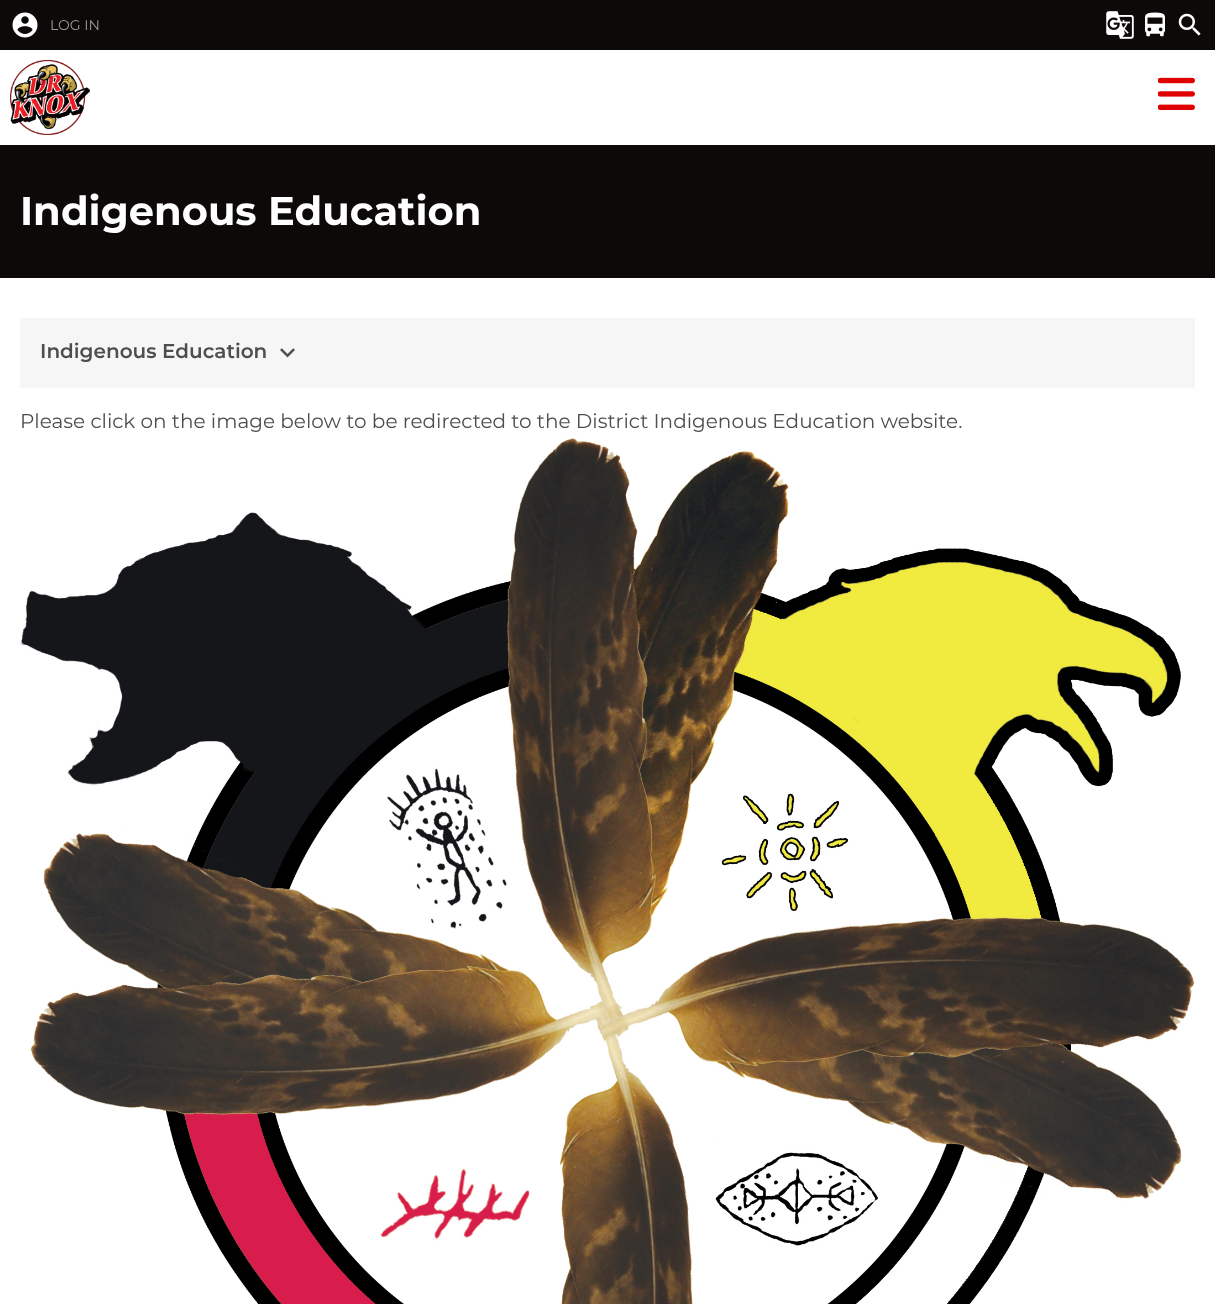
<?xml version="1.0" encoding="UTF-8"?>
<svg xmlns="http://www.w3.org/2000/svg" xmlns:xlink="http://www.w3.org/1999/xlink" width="1215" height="1304">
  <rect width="100%" height="100%" fill="#ffffff" />
  <rect width="1215" height="50" fill="#0c0908" />
  <image x="12" y="12" width="26" height="26" xlink:href="image1.png" />
  <image x="1106" y="11" width="28" height="28" xlink:href="image2.png" />
  <image x="1145" y="12" width="20" height="25" xlink:href="image3.png" />
  <image x="1178" y="13" width="23" height="23" xlink:href="image4.png" />
  <image x="10" y="60" width="80" height="75" xlink:href="image5.png" />
  <image x="1158" y="77" width="37" height="33" xlink:href="image6.png" />
  <rect y="145" width="1215" height="133" fill="#0c0908" />
  <rect x="20" y="318" width="1175" height="70" fill="#f6f6f6" />
  <image x="280" y="348" width="15" height="10" xlink:href="image7.png" />
  <image x="20" y="438" width="1175" height="866" xlink:href="image8.png" />
  <text x="50" y="30" style="font-family: Montserrat; font-size: 14px; fill: #9e9d9c">LOG IN</text>
  <text x="20" y="225" style="font-family: Montserrat; font-size: 40px; font-weight: bold; fill: #ffffff">Indigenous Education</text>
  <text x="40" y="358" style="font-family: Montserrat; font-size: 20px; font-weight: 600; fill: #4e4e4e">Indigenous Education</text>
  <text x="20" y="428" style="font-family: Montserrat; font-size: 20px; fill: #4e4e4e">Please click on the image below to be redirected to the District Indigenous Education website.</text>
</svg>
